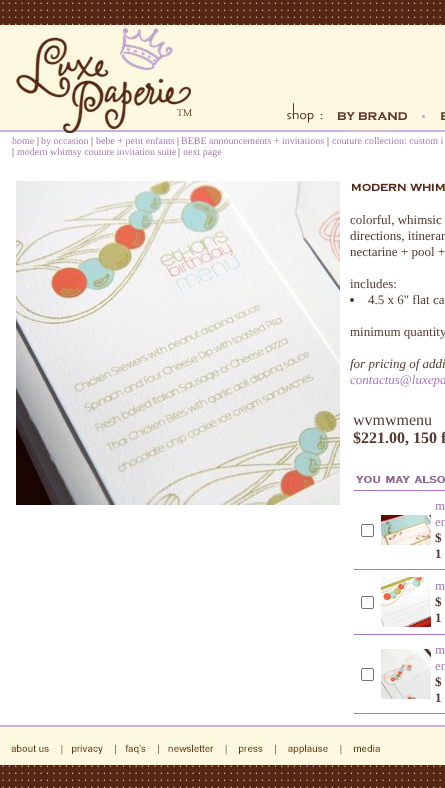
<?xml version="1.0" encoding="UTF-8"?>
<svg xmlns="http://www.w3.org/2000/svg" xmlns:xlink="http://www.w3.org/1999/xlink" width="445" height="788">
  <rect width="100%" height="100%" fill="#ffffff" />
  <image x="0" y="0" width="445" height="788" xlink:href="image1.png" />
  <image x="0" y="25" width="331" height="108" xlink:href="image2.png" />
  <rect x="331" y="25" width="114" height="79" fill="#fef8e0" />
  <image x="331" y="104" width="91" height="29" xlink:href="image3.png" />
  <image x="422" y="104" width="23" height="29" xlink:href="image4.png" />
  <rect y="133" width="445" height="590" fill="#ffffff" />
  <image x="16" y="181" width="324" height="324" xlink:href="image5.png" />
  <image x="352" y="183" width="93" height="8" xlink:href="image6.png" />
  <circle cx="352" cy="300" r="2" fill="#553a2f" />
  <image x="356" y="476" width="89" height="8" xlink:href="image7.png" />
  <rect x="354" y="490" width="91" height="1" fill="#a77aba" />
  <rect x="361.5" y="524.5" width="12" height="12" rx="1.5" fill="none" stroke="#767676" />
  <image x="381" y="515" width="50" height="30" xlink:href="image8.png" />
  <rect x="354" y="569" width="91" height="1" fill="#a77aba" />
  <rect x="361.5" y="596.5" width="12" height="12" rx="1.5" fill="none" stroke="#767676" />
  <image x="381" y="577" width="50" height="50" xlink:href="image9.png" />
  <rect x="354" y="634" width="91" height="1" fill="#a77aba" />
  <rect x="361.5" y="668.5" width="12" height="12" rx="1.5" fill="none" stroke="#767676" />
  <image x="381" y="649" width="50" height="50" xlink:href="image10.png" />
  <rect x="354" y="713" width="91" height="1" fill="#a77aba" />
  <image x="0" y="723" width="445" height="42" xlink:href="image11.png" />
  <text x="12" y="144" style="font-family: Liberation Serif; font-size: 10px; fill: #a77aba">home</text>
  <text x="37" y="144" style="font-family: Liberation Serif; font-size: 10px; fill: #553a2f">|</text>
  <text x="41" y="144" style="font-family: Liberation Serif; font-size: 10px; fill: #a77aba">by occasion</text>
  <text x="91" y="144" style="font-family: Liberation Serif; font-size: 10px; fill: #553a2f">|</text>
  <text x="96" y="144" style="font-family: Liberation Serif; font-size: 10px; fill: #a77aba">bebe + petit enfants</text>
  <text x="177" y="144" style="font-family: Liberation Serif; font-size: 10px; fill: #553a2f">|</text>
  <text x="181" y="144" style="font-family: Liberation Serif; font-size: 10px; fill: #a77aba">BEBE announcements + invitations</text>
  <text x="327" y="144" style="font-family: Liberation Serif; font-size: 10px; fill: #553a2f">|</text>
  <text x="332" y="144" style="font-family: Liberation Serif; font-size: 10px; fill: #a77aba">couture collection: custom i</text>
  <text x="12" y="155" style="font-family: Liberation Serif; font-size: 10px; fill: #553a2f">|</text>
  <text x="17" y="155" style="font-family: Liberation Serif; font-size: 10px; fill: #a77aba">modern whimsy couture invitation suite</text>
  <text x="178" y="155" style="font-family: Liberation Serif; font-size: 10px; fill: #553a2f">|</text>
  <text x="183" y="155" style="font-family: Liberation Serif; font-size: 10px; fill: #a77aba">next page</text>
  <text x="350" y="224" style="font-family: Liberation Serif; font-size: 13px; fill: #553a2f">colorful, whimsic</text>
  <text x="350" y="240" style="font-family: Liberation Serif; font-size: 13px; fill: #553a2f">directions, itinerar</text>
  <text x="350" y="256" style="font-family: Liberation Serif; font-size: 13px; fill: #553a2f">nectarine + pool +</text>
  <text x="350" y="288" style="font-family: Liberation Serif; font-size: 13px; fill: #553a2f">includes:</text>
  <text x="368" y="304" style="font-family: Liberation Serif; font-size: 13px; fill: #553a2f">4.5 x 6" flat ca</text>
  <text x="350" y="336" style="font-family: Liberation Serif; font-size: 13px; fill: #553a2f">minimum quantity</text>
  <text x="350" y="368" style="font-family: Liberation Serif; font-size: 13px; font-style: italic; fill: #553a2f">for pricing of addi</text>
  <text x="350" y="384" style="font-family: Liberation Serif; font-size: 13px; font-style: italic; fill: #a77aba">contactus@luxepa</text>
  <text x="353" y="425" style="font-family: Liberation Serif; font-size: 16px; fill: #553a2f">wvmwmenu</text>
  <text x="353" y="443" style="font-family: Liberation Serif; font-size: 16px; font-weight: bold; fill: #553a2f">$221.00, 150 f</text>
  <text x="435" y="510" style="font-family: Liberation Serif; font-size: 13px; fill: #a77aba">m</text>
  <text x="435" y="526" style="font-family: Liberation Serif; font-size: 13px; fill: #a77aba">en</text>
  <text x="435" y="542" style="font-family: Liberation Serif; font-size: 13px; font-weight: bold; fill: #553a2f">$</text>
  <text x="435" y="558" style="font-family: Liberation Serif; font-size: 13px; font-weight: bold; fill: #553a2f">1</text>
  <text x="435" y="590" style="font-family: Liberation Serif; font-size: 13px; fill: #a77aba">m</text>
  <text x="435" y="606" style="font-family: Liberation Serif; font-size: 13px; font-weight: bold; fill: #553a2f">$</text>
  <text x="435" y="622" style="font-family: Liberation Serif; font-size: 13px; font-weight: bold; fill: #553a2f">1</text>
  <text x="435" y="654" style="font-family: Liberation Serif; font-size: 13px; fill: #a77aba">m</text>
  <text x="435" y="670" style="font-family: Liberation Serif; font-size: 13px; fill: #a77aba">en</text>
  <text x="435" y="686" style="font-family: Liberation Serif; font-size: 13px; font-weight: bold; fill: #553a2f">$</text>
  <text x="435" y="702" style="font-family: Liberation Serif; font-size: 13px; font-weight: bold; fill: #553a2f">1</text>
</svg>
